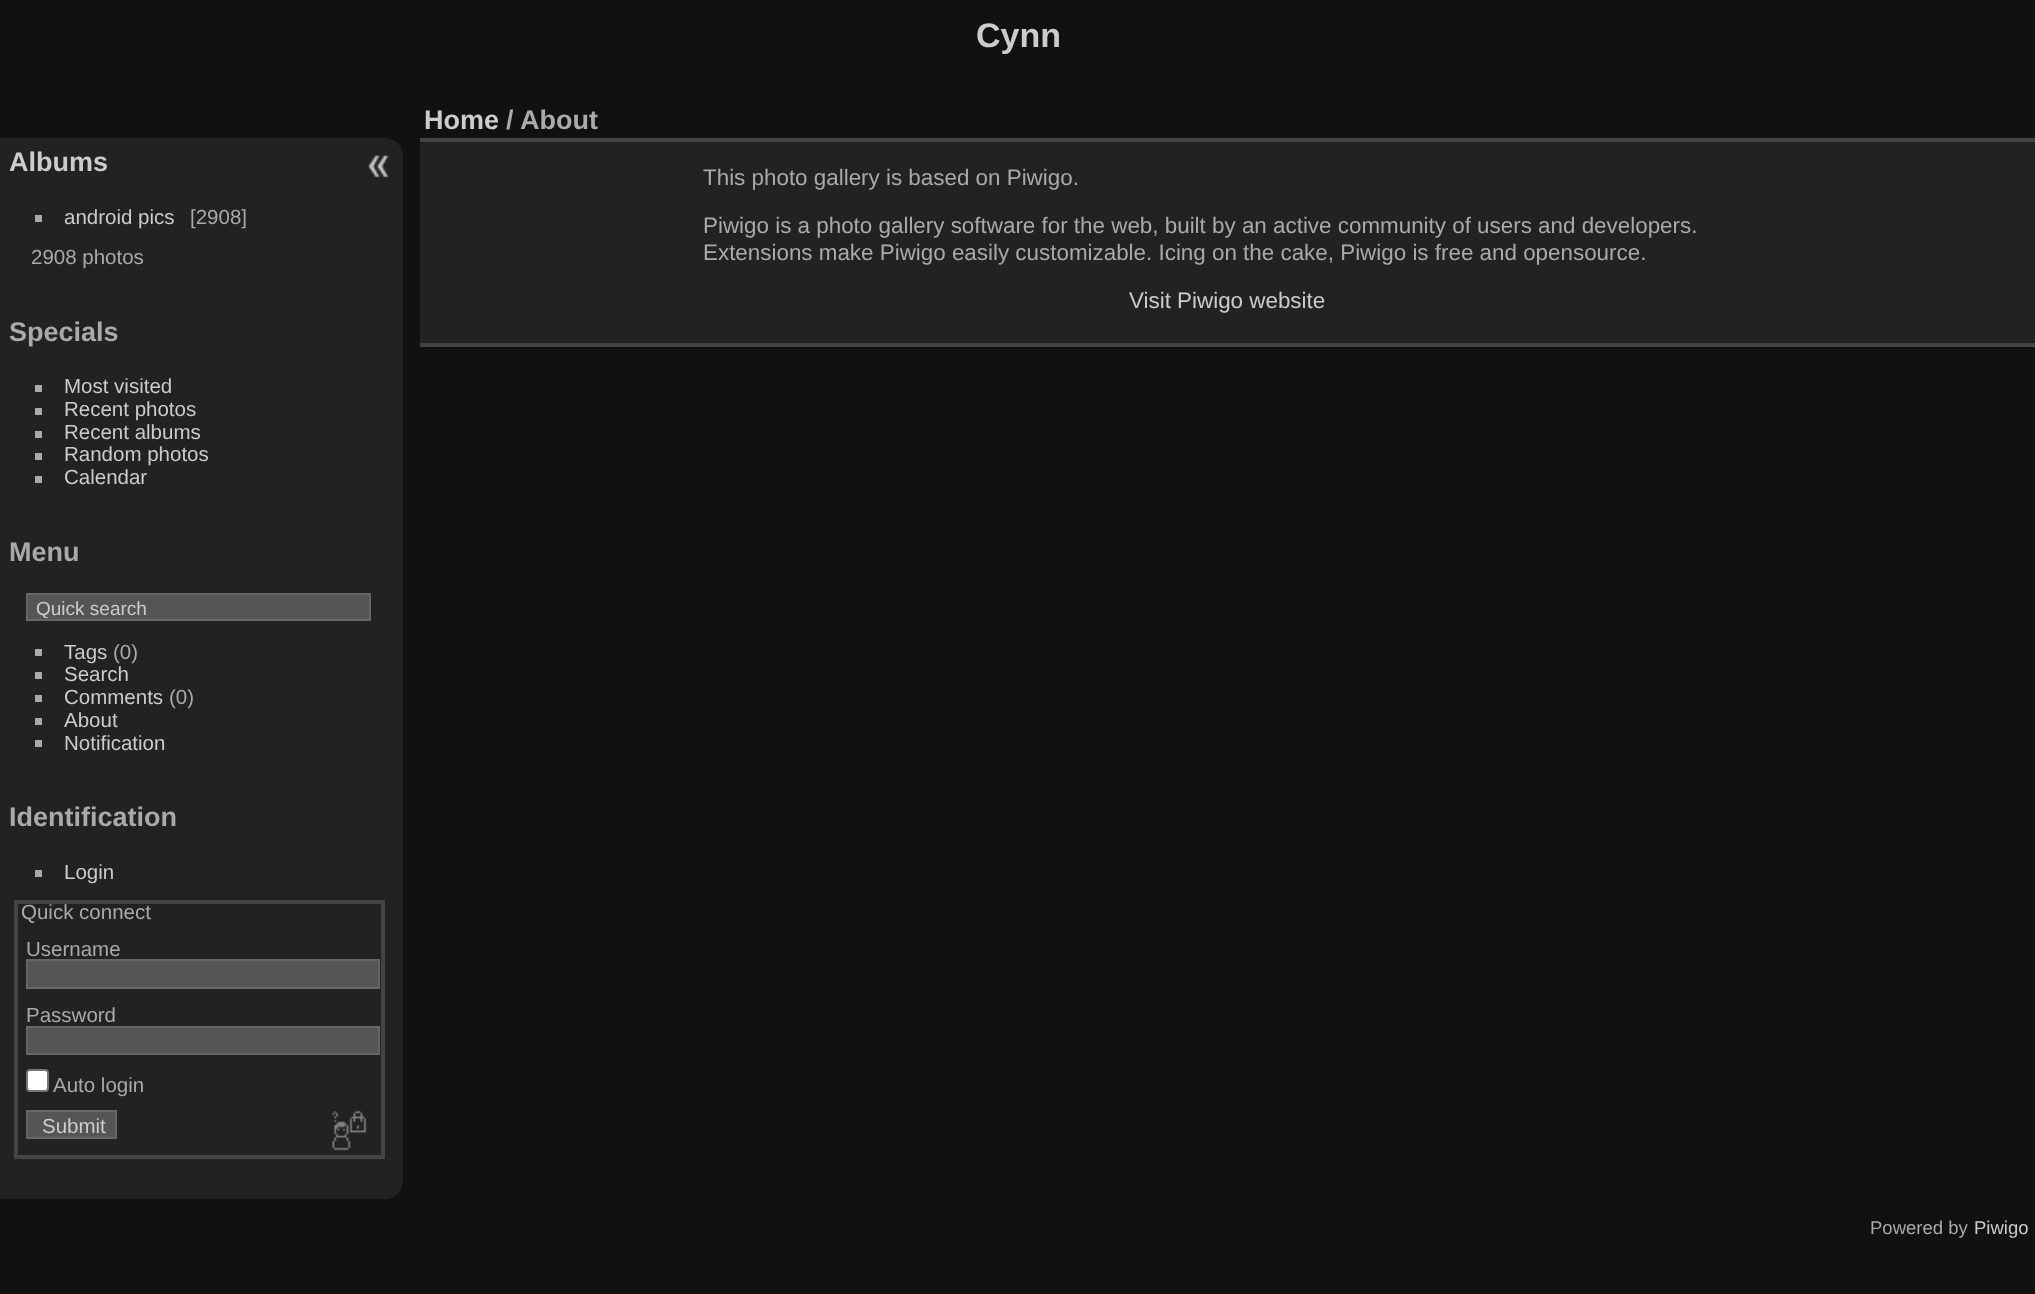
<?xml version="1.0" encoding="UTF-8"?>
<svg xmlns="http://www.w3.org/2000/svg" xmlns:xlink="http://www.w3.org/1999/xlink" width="2035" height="1294">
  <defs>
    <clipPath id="clip1"><rect x="32" y="597" width="334" height="21" /></clipPath>
  </defs>
  <rect width="100%" height="100%" fill="#111111" />
  <path d="M 0 138 h 385 c 10 0 18 8 18 18 v 1025 c 0 10 -8 18 -18 18 h -385 z" fill="#222222" />
  <rect x="35" y="215" width="7" height="7" fill="#aaaaaa" />
  <rect x="35" y="385" width="7" height="7" fill="#aaaaaa" />
  <rect x="35" y="408" width="7" height="7" fill="#aaaaaa" />
  <rect x="35" y="431" width="7" height="7" fill="#aaaaaa" />
  <rect x="35" y="453" width="7" height="7" fill="#aaaaaa" />
  <rect x="35" y="476" width="7" height="7" fill="#aaaaaa" />
  <rect x="27" y="594" width="343" height="26" fill="#555555" stroke="#666666" stroke-width="2" />
  <rect x="35" y="649" width="7" height="7" fill="#aaaaaa" />
  <rect x="35" y="672" width="7" height="7" fill="#aaaaaa" />
  <rect x="35" y="695" width="7" height="7" fill="#aaaaaa" />
  <rect x="35" y="718" width="7" height="7" fill="#aaaaaa" />
  <rect x="35" y="740" width="7" height="7" fill="#aaaaaa" />
  <rect x="35" y="870" width="7" height="7" fill="#aaaaaa" />
  <rect x="16" y="902" width="367" height="255" fill="none" stroke="#444444" stroke-width="4" />
  <rect x="27" y="960" width="352" height="28" fill="#555555" stroke="#666666" stroke-width="2" />
  <rect x="27" y="1027" width="352" height="27" fill="#555555" stroke="#666666" stroke-width="2" />
  <rect x="27" y="1070" width="21" height="21" rx="3" fill="#ffffff" stroke="#767676" stroke-width="2" />
  <rect x="27" y="1111" width="89" height="27" fill="#555555" stroke="#666666" stroke-width="2" />
  <image x="332" y="1110" width="35" height="41" xlink:href="image1.png" />
  <image x="367" y="155" width="22" height="23" xlink:href="image2.png" />
  <rect x="420" y="142" width="1615" height="201" fill="#222222" />
  <rect x="420" y="343" width="1615" height="4" fill="#444444" />
  <rect x="420" y="138" width="1615" height="4" fill="#444444" />
  <text x="976" y="47" style="font-family: Liberation Sans; font-size: 34px; font-weight: bold; fill: #cccccc">Cynn</text>
  <text x="9" y="171" style="font-family: Liberation Sans; font-size: 27px; font-weight: bold; fill: #cccccc">Albums</text>
  <text x="64" y="224" style="font-family: Liberation Sans; font-size: 20.5px; fill: #cccccc">android pics</text>
  <text x="190" y="224" style="font-family: Liberation Sans; font-size: 20.5px; fill: #aaaaaa">[2908]</text>
  <text x="31" y="264" style="font-family: Liberation Sans; font-size: 20.5px; fill: #aaaaaa">2908 photos</text>
  <text x="9" y="341" style="font-family: Liberation Sans; font-size: 27px; font-weight: bold; fill: #aaaaaa">Specials</text>
  <text x="64" y="393" style="font-family: Liberation Sans; font-size: 20.5px; fill: #cccccc">Most visited</text>
  <text x="64" y="416" style="font-family: Liberation Sans; font-size: 20.5px; fill: #cccccc">Recent photos</text>
  <text x="64" y="439" style="font-family: Liberation Sans; font-size: 20.5px; fill: #cccccc">Recent albums</text>
  <text x="64" y="461" style="font-family: Liberation Sans; font-size: 20.5px; fill: #cccccc">Random photos</text>
  <text x="64" y="484" style="font-family: Liberation Sans; font-size: 20.5px; fill: #cccccc">Calendar</text>
  <text x="9" y="561" style="font-family: Liberation Sans; font-size: 27px; font-weight: bold; fill: #aaaaaa">Menu</text>
  <g clip-path="url(#clip1)">
    <text x="36" y="615" style="font-family: Liberation Sans; font-size: 19px; fill: #cccccc">Quick search</text>
  </g>
  <text x="64" y="659" style="font-family: Liberation Sans; font-size: 20.5px; fill: #cccccc">Tags</text>
  <text x="113" y="659" style="font-family: Liberation Sans; font-size: 20.5px; fill: #aaaaaa">(0)</text>
  <text x="64" y="681" style="font-family: Liberation Sans; font-size: 20.5px; fill: #cccccc">Search</text>
  <text x="64" y="704" style="font-family: Liberation Sans; font-size: 20.5px; fill: #cccccc">Comments</text>
  <text x="169" y="704" style="font-family: Liberation Sans; font-size: 20.5px; fill: #aaaaaa">(0)</text>
  <text x="64" y="727" style="font-family: Liberation Sans; font-size: 20.5px; fill: #cccccc">About</text>
  <text x="64" y="750" style="font-family: Liberation Sans; font-size: 20.5px; fill: #cccccc">Notification</text>
  <text x="9" y="826" style="font-family: Liberation Sans; font-size: 27px; font-weight: bold; fill: #aaaaaa">Identification</text>
  <text x="64" y="879" style="font-family: Liberation Sans; font-size: 20.5px; fill: #cccccc">Login</text>
  <text x="21" y="919" style="font-family: Liberation Sans; font-size: 20.5px; fill: #aaaaaa">Quick connect</text>
  <text x="26" y="956" style="font-family: Liberation Sans; font-size: 20.5px; fill: #aaaaaa">Username</text>
  <text x="26" y="1022" style="font-family: Liberation Sans; font-size: 20.5px; fill: #aaaaaa">Password</text>
  <text x="53" y="1092" style="font-family: Liberation Sans; font-size: 20.5px; fill: #aaaaaa">Auto login</text>
  <text x="42" y="1133" style="font-family: Liberation Sans; font-size: 20.5px; fill: #cccccc">Submit</text>
  <text x="424" y="129" style="font-family: Liberation Sans; font-size: 27px; font-weight: bold; fill: #cccccc">Home</text>
  <text x="506" y="129" style="font-family: Liberation Sans; font-size: 27px; font-weight: bold; fill: #aaaaaa">/ About</text>
  <text x="703" y="185" style="font-family: Liberation Sans; font-size: 22.4px; fill: #aaaaaa">This photo gallery is based on Piwigo.</text>
  <text x="703" y="233" style="font-family: Liberation Sans; font-size: 22.4px; fill: #aaaaaa">Piwigo is a photo gallery software for the web, built by an active community of users and developers.</text>
  <text x="703" y="260" style="font-family: Liberation Sans; font-size: 22.4px; fill: #aaaaaa">Extensions make Piwigo easily customizable. Icing on the cake, Piwigo is free and opensource.</text>
  <text x="1129" y="308" style="font-family: Liberation Sans; font-size: 22.4px; fill: #cccccc">Visit Piwigo website</text>
  <text x="1870" y="1234" style="font-family: Liberation Sans; font-size: 18.5px; fill: #aaaaaa">Powered by</text>
  <text x="1974" y="1234" style="font-family: Liberation Sans; font-size: 18.5px; fill: #cccccc">Piwigo</text>
</svg>
